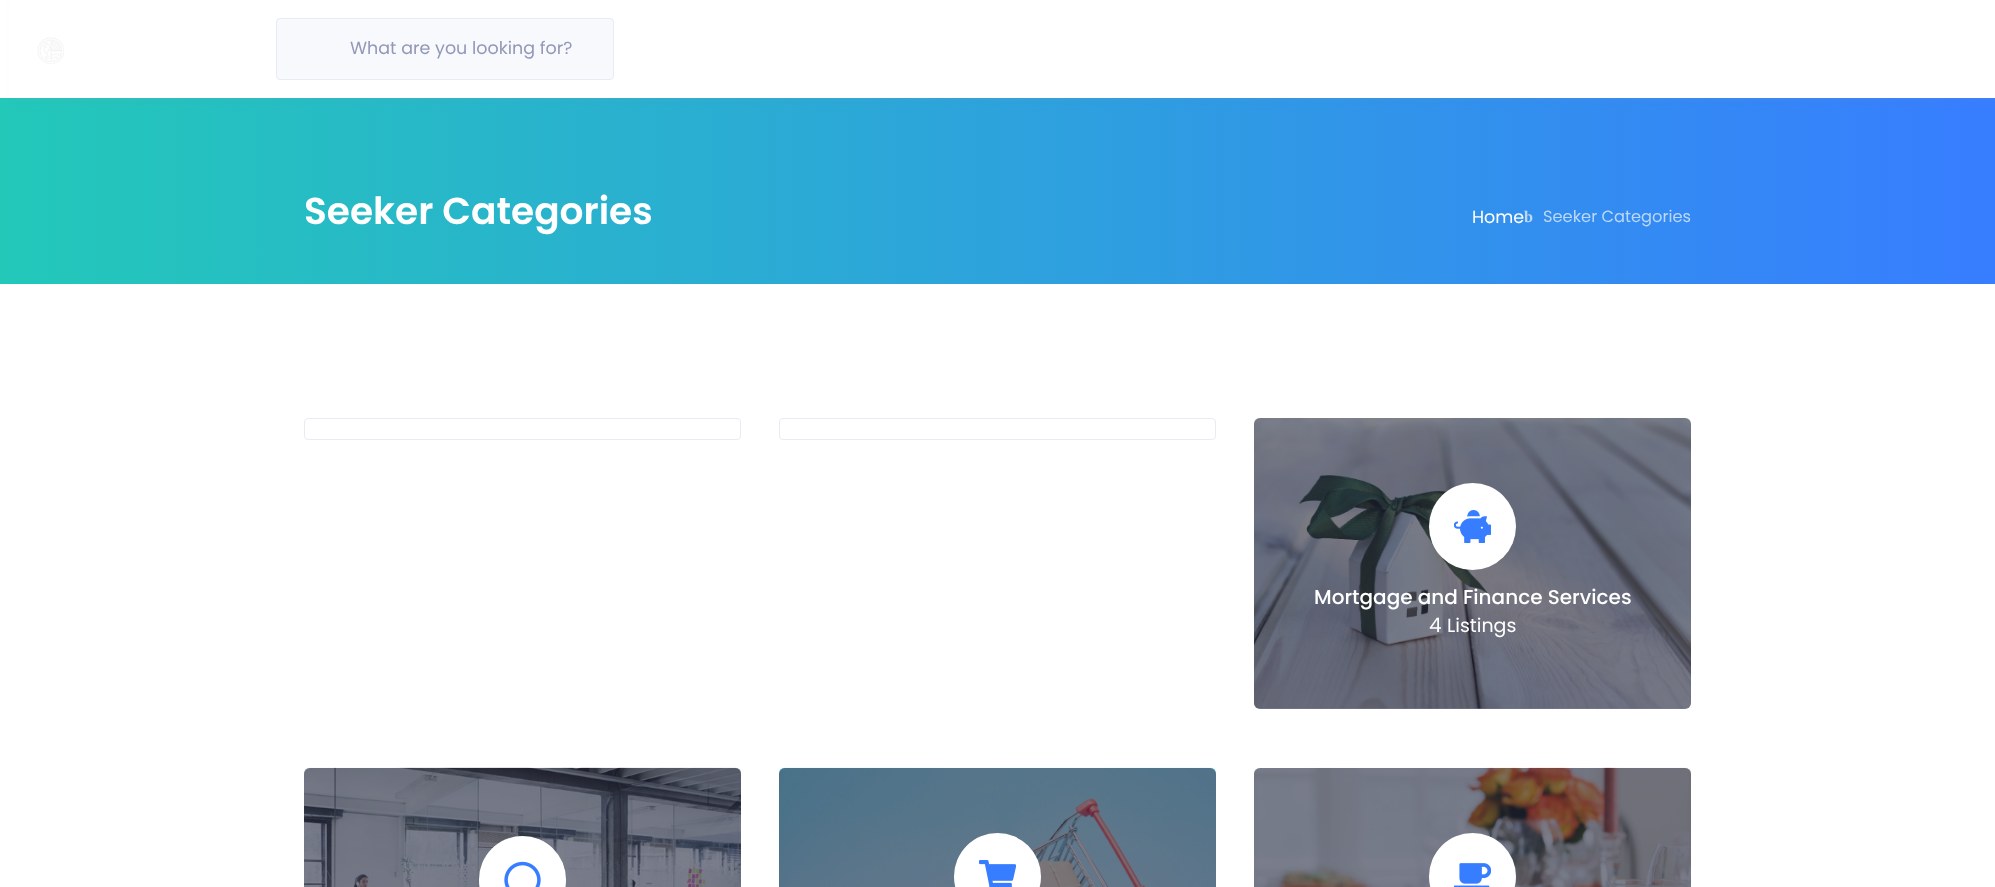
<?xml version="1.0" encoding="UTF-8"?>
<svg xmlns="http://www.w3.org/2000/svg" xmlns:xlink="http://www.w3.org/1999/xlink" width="1995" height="887">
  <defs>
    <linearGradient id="g1" gradientUnits="userSpaceOnUse" x1="1995" y1="190" x2="0" y2="190"><stop offset="0" stop-color="#377dff" /><stop offset="1" stop-color="#23c8b9" /></linearGradient>
  </defs>
  <rect width="100%" height="100%" fill="#ffffff" />
  <rect y="98" width="1995" height="186" fill="url(#g1)" />
  <rect x="13" width="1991" height="98" fill="#9299b8" fill-opacity="0.2" filter="blur(3px)" />
  <rect x="9" width="1986" height="98" fill="#ffffff" />
  <image x="37" y="37" width="27" height="27" xlink:href="image1.png" />
  <rect x="276.5" y="18.5" width="337" height="61" rx="3.5" fill="#f8f9fc" stroke="#e9ebf4" />
  <rect x="304.5" y="418.5" width="436" height="21" rx="3.5" fill="none" stroke="#e9ebf4" />
  <rect x="779.5" y="418.5" width="436" height="21" rx="3.5" fill="none" stroke="#e9ebf4" />
  <image x="1254" y="417" width="437" height="292" xlink:href="image2.png" />
  <rect x="1254" y="418" width="437" height="291" rx="6" fill="#272b41" fill-opacity="0.6" />
  <circle cx="1472.5" cy="526.5" r="43.5" fill="#ffffff" />
  <image x="1454" y="510" width="37" height="33" xlink:href="image3.png" />
  <image x="304" y="767" width="437" height="120" xlink:href="image4.png" />
  <rect x="304" y="768" width="437" height="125" rx="6" fill="#272b41" fill-opacity="0.6" />
  <rect x="479" y="836" width="87" height="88" rx="43.5" fill="#ffffff" />
  <image x="504" y="861" width="37" height="26" xlink:href="image5.png" />
  <image x="779" y="767" width="437" height="120" xlink:href="image6.png" />
  <rect x="779" y="768" width="437" height="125" rx="6" fill="#272b41" fill-opacity="0.6" />
  <circle cx="997.5" cy="876.5" r="43.5" fill="#ffffff" />
  <image x="979" y="860" width="37" height="27" xlink:href="image7.png" />
  <image x="1254" y="767" width="437" height="120" xlink:href="image8.png" />
  <rect x="1254" y="768" width="437" height="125" rx="6" fill="#272b41" fill-opacity="0.6" />
  <circle cx="1472.5" cy="876.5" r="43.5" fill="#ffffff" />
  <image x="1454" y="863" width="37" height="24" xlink:href="image9.png" />
  <text x="350" y="54" style="font-family: Poppins; font-size: 17.5px; fill: #9299b8">What are you looking for?</text>
  <text x="304" y="224" style="font-family: Poppins; font-size: 37.5px; font-weight: 600; fill: #ffffff">Seeker Categories</text>
  <text x="1472" y="223" style="font-family: Poppins; font-size: 17.5px; fill: #ffffff">Home</text>
  <text x="1524" y="222" style="font-family: Liberation Serif; font-size: 16.25px; font-weight: bold; fill: #bbd8f8">b</text>
  <text x="1543" y="222" style="font-family: Poppins; font-size: 16.25px; fill: #bbd8f8">Seeker Categories</text>
  <text x="1314" y="604" style="font-family: Poppins; font-size: 20px; font-weight: 500; fill: #ffffff">Mortgage and Finance Services</text>
  <text x="1429" y="632" style="font-family: Poppins; font-size: 20px; fill: #ffffff">4</text>
  <text x="1447" y="632" style="font-family: Poppins; font-size: 19px; fill: #ffffff">Listings</text>
</svg>
